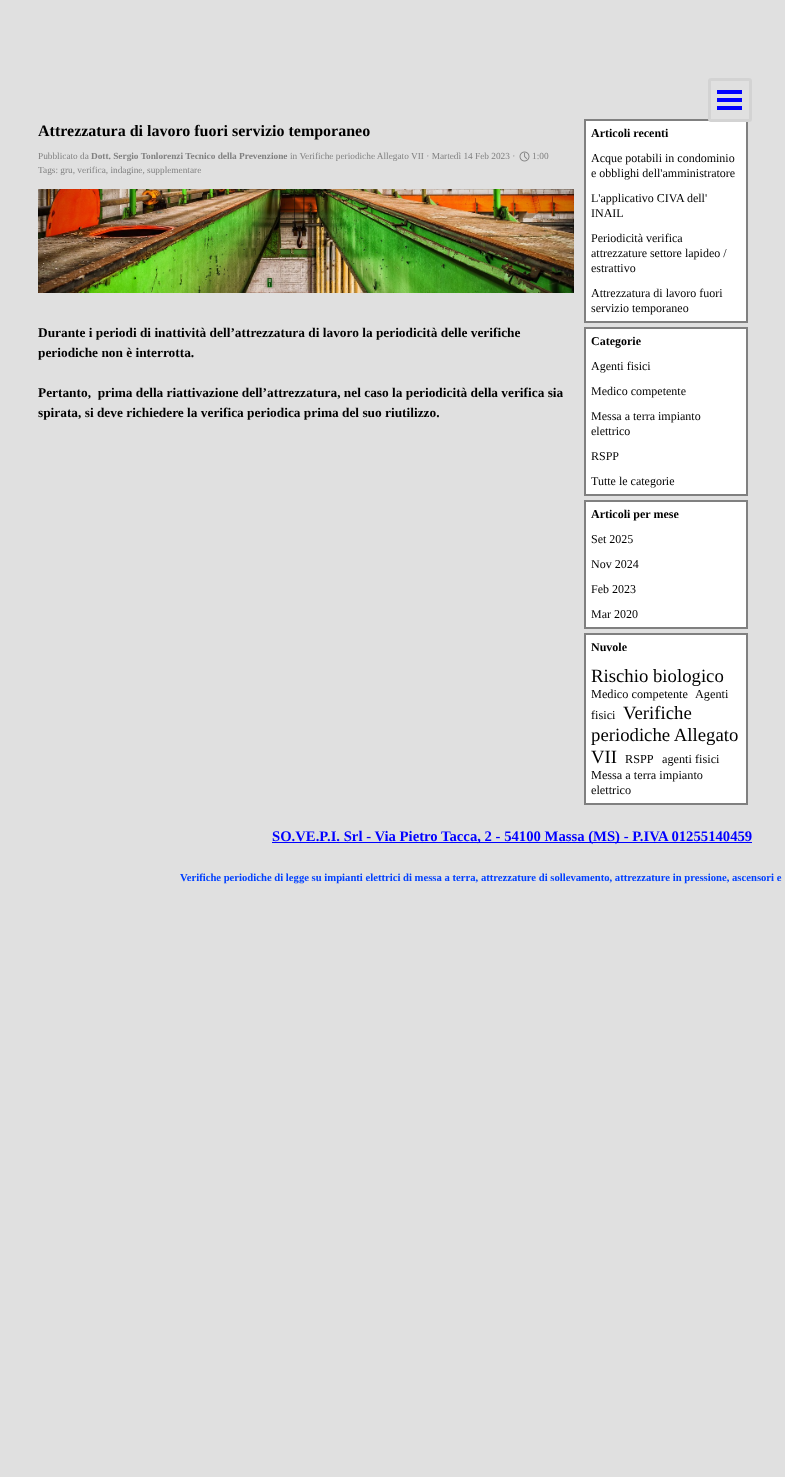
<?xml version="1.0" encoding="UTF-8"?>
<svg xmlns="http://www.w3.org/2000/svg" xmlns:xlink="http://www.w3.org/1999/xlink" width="785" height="1477">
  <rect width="100%" height="100%" fill="#e0e0e0" />
  <rect x="585" y="120" width="162" height="202" fill="#ffffff" stroke="#808080" stroke-width="2" />
  <rect x="709.5" y="79.5" width="41" height="41" rx="1.5" fill="none" stroke="#d3d3d3" stroke-width="3" />
  <rect x="717" y="90" width="25" height="4" fill="#0000ff" />
  <rect x="717" y="98" width="25" height="4" fill="#0000ff" />
  <rect x="717" y="106" width="25" height="4" fill="#0000ff" />
  <image x="519" y="151" width="11" height="11" xlink:href="image1.png" />
  <image x="38" y="189" width="536" height="104" xlink:href="image2.png" />
  <rect x="585" y="328" width="162" height="167" fill="#ffffff" stroke="#808080" stroke-width="2" />
  <rect x="585" y="501" width="162" height="127" fill="#ffffff" stroke="#808080" stroke-width="2" />
  <rect x="585" y="634" width="162" height="170" fill="#ffffff" stroke="#808080" stroke-width="2" />
  <rect x="272" y="842" width="480" height="1" fill="#0000ff" />
  <text x="38" y="136" style="font-family: Liberation Serif; font-size: 16px; font-weight: bold; fill: #000000">Attrezzatura di lavoro fuori servizio temporaneo</text>
  <text x="38" y="159" style="font-family: Liberation Serif; font-size: 9.3px; fill: #808080">Pubblicato da</text>
  <text x="91" y="159" style="font-family: Liberation Serif; font-size: 9.3px; font-weight: bold; fill: #808080">Dott. Sergio Tonlorenzi Tecnico della Prevenzione</text>
  <text x="290" y="159" style="font-family: Liberation Serif; font-size: 9.3px; fill: #808080">in Verifiche periodiche Allegato VII · Martedì 14 Feb 2023 ·</text>
  <text x="532" y="159" style="font-family: Liberation Serif; font-size: 9.3px; fill: #808080">1:00</text>
  <text x="38" y="173" style="font-family: Liberation Serif; font-size: 9.3px; fill: #808080">Tags: gru, verifica, indagine, supplementare</text>
  <text x="38" y="337" style="font-family: Liberation Serif; font-size: 13.35px; font-weight: bold; fill: #000000">Durante i periodi di inattività dell’attrezzatura di lavoro la periodicità delle verifiche</text>
  <text x="38" y="357" style="font-family: Liberation Serif; font-size: 13.35px; font-weight: bold; fill: #000000">periodiche non è interrotta.</text>
  <text x="38" y="397" style="font-family: Liberation Serif; font-size: 13.35px; font-weight: bold; fill: #000000" xml:space="preserve">Pertanto,  prima della riattivazione dell’attrezzatura, nel caso la periodicità della verifica sia</text>
  <text x="38" y="417" style="font-family: Liberation Serif; font-size: 13.35px; font-weight: bold; fill: #000000">spirata, si deve richiedere la verifica periodica prima del suo riutilizzo.</text>
  <text x="591" y="137" style="font-family: Liberation Serif; font-size: 12px; font-weight: bold; fill: #000000">Articoli recenti</text>
  <text x="591" y="162" style="font-family: Liberation Serif; font-size: 12px; fill: #000000">Acque potabili in condominio</text>
  <text x="591" y="177" style="font-family: Liberation Serif; font-size: 12px; fill: #000000">e obblighi dell'amministratore</text>
  <text x="591" y="202" style="font-family: Liberation Serif; font-size: 12px; fill: #000000">L'applicativo CIVA dell'</text>
  <text x="591" y="217" style="font-family: Liberation Serif; font-size: 12px; fill: #000000">INAIL</text>
  <text x="591" y="242" style="font-family: Liberation Serif; font-size: 12px; fill: #000000">Periodicità verifica</text>
  <text x="591" y="257" style="font-family: Liberation Serif; font-size: 12px; fill: #000000">attrezzature settore lapideo /</text>
  <text x="591" y="272" style="font-family: Liberation Serif; font-size: 12px; fill: #000000">estrattivo</text>
  <text x="591" y="297" style="font-family: Liberation Serif; font-size: 12px; fill: #000000">Attrezzatura di lavoro fuori</text>
  <text x="591" y="312" style="font-family: Liberation Serif; font-size: 12px; fill: #000000">servizio temporaneo</text>
  <text x="591" y="345" style="font-family: Liberation Serif; font-size: 12px; font-weight: bold; fill: #000000">Categorie</text>
  <text x="591" y="370" style="font-family: Liberation Serif; font-size: 12px; fill: #000000">Agenti fisici</text>
  <text x="591" y="395" style="font-family: Liberation Serif; font-size: 12px; fill: #000000">Medico competente</text>
  <text x="591" y="420" style="font-family: Liberation Serif; font-size: 12px; fill: #000000">Messa a terra impianto</text>
  <text x="591" y="435" style="font-family: Liberation Serif; font-size: 12px; fill: #000000">elettrico</text>
  <text x="591" y="460" style="font-family: Liberation Serif; font-size: 12px; fill: #000000">RSPP</text>
  <text x="591" y="485" style="font-family: Liberation Serif; font-size: 12px; fill: #000000">Tutte le categorie</text>
  <text x="591" y="518" style="font-family: Liberation Serif; font-size: 12px; font-weight: bold; fill: #000000">Articoli per mese</text>
  <text x="591" y="543" style="font-family: Liberation Serif; font-size: 12px; fill: #000000">Set 2025</text>
  <text x="591" y="568" style="font-family: Liberation Serif; font-size: 12px; fill: #000000">Nov 2024</text>
  <text x="591" y="593" style="font-family: Liberation Serif; font-size: 12px; fill: #000000">Feb 2023</text>
  <text x="591" y="618" style="font-family: Liberation Serif; font-size: 12px; fill: #000000">Mar 2020</text>
  <text x="591" y="651" style="font-family: Liberation Serif; font-size: 12px; font-weight: bold; fill: #000000">Nuvole</text>
  <text x="591" y="682" style="font-family: Liberation Serif; font-size: 18.75px; fill: #000000">Rischio biologico</text>
  <text x="591" y="698" style="font-family: Liberation Serif; font-size: 12.25px; fill: #000000">Medico competente</text>
  <text x="695" y="698" style="font-family: Liberation Serif; font-size: 12.25px; fill: #000000">Agenti</text>
  <text x="591" y="719" style="font-family: Liberation Serif; font-size: 12.25px; fill: #000000">fisici</text>
  <text x="623" y="719" style="font-family: Liberation Serif; font-size: 18.75px; fill: #000000">Verifiche</text>
  <text x="591" y="741" style="font-family: Liberation Serif; font-size: 18.75px; fill: #000000">periodiche Allegato</text>
  <text x="591" y="763" style="font-family: Liberation Serif; font-size: 18.75px; fill: #000000">VII</text>
  <text x="625" y="763" style="font-family: Liberation Serif; font-size: 12.25px; fill: #000000">RSPP</text>
  <text x="662" y="763" style="font-family: Liberation Serif; font-size: 12.25px; fill: #000000">agenti fisici</text>
  <text x="591" y="779" style="font-family: Liberation Serif; font-size: 12.25px; fill: #000000">Messa a terra impianto</text>
  <text x="591" y="794" style="font-family: Liberation Serif; font-size: 12.25px; fill: #000000">elettrico</text>
  <text x="272" y="841" style="font-family: Liberation Serif; font-size: 14.7px; font-weight: bold; fill: #0000ff">SO.VE.P.I. Srl - Via Pietro Tacca, 2 - 54100 Massa (MS) - P.IVA 01255140459</text>
  <text x="180" y="881" style="font-family: Liberation Serif; font-size: 10.67px; font-weight: bold; fill: #0040ff">Verifiche periodiche di legge su impianti elettrici di messa a terra, attrezzature di sollevamento, attrezzature in pressione, ascensori e</text>
</svg>
